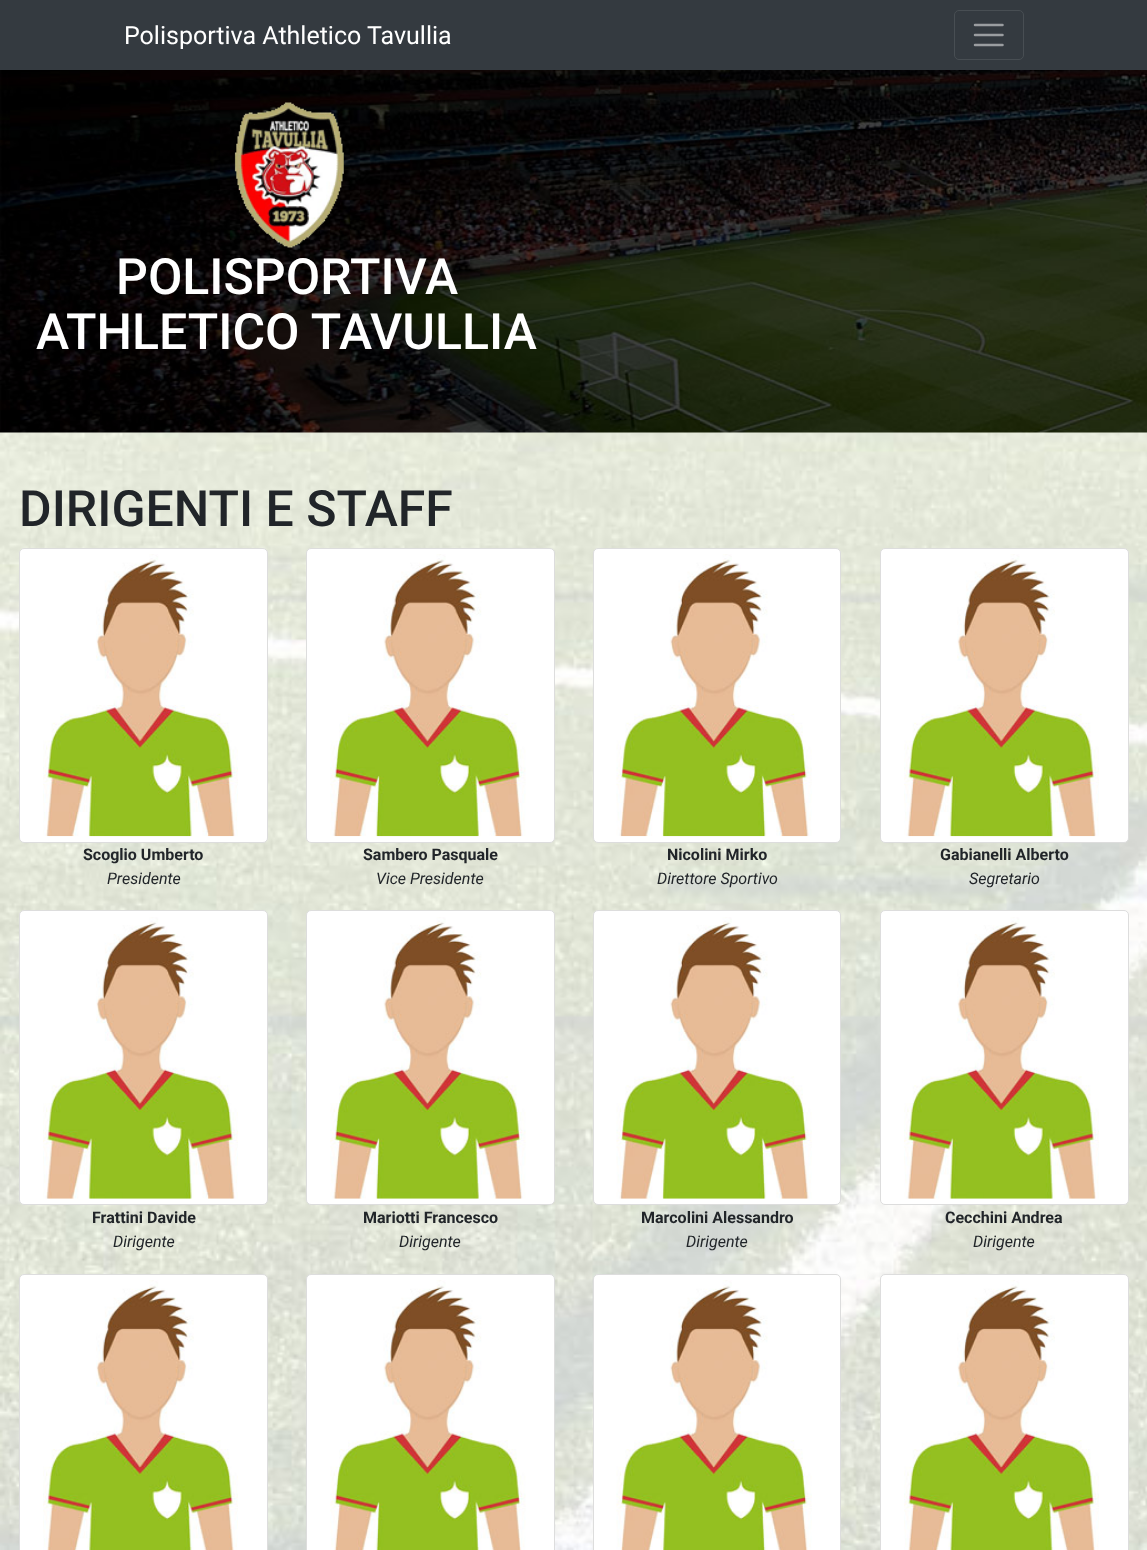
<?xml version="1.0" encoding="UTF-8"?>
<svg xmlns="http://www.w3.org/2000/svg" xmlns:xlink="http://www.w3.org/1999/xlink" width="1147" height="1550">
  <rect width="100%" height="100%" fill="#ffffff" />
  <image x="0" y="432" width="1147" height="1118" xlink:href="image1.png" />
  <rect width="1147" height="70" fill="#343a40" />
  <rect x="954.5" y="10.5" width="69" height="49" rx="4.5" fill="none" stroke="#484e53" />
  <path d="M 975 25 h 27.5 m -27.5 10 h 27.5 m -27.5 10 h 27.5" fill="none" stroke="#9a9da0" stroke-width="2.5" stroke-linecap="round" />
  <image x="0" y="70" width="1147" height="363" xlink:href="image2.png" />
  <image x="234" y="102" width="110" height="146" xlink:href="image3.png" />
  <rect x="19.5" y="548.5" width="248" height="294" rx="4.5" fill="#ffffff" stroke="#dddddd" />
  <image x="43" y="554" width="195" height="283" xlink:href="image4.png" />
  <rect x="306.5" y="548.5" width="248" height="294" rx="4.5" fill="#ffffff" stroke="#dddddd" />
  <image x="330" y="554" width="196" height="283" xlink:href="image5.png" />
  <rect x="593.5" y="548.5" width="247" height="294" rx="4.5" fill="#ffffff" stroke="#dddddd" />
  <image x="616" y="554" width="196" height="283" xlink:href="image6.png" />
  <rect x="880.5" y="548.5" width="248" height="294" rx="4.5" fill="#ffffff" stroke="#dddddd" />
  <image x="904" y="554" width="195" height="283" xlink:href="image7.png" />
  <rect x="19.5" y="910.5" width="248" height="294" rx="4.5" fill="#ffffff" stroke="#dddddd" />
  <image x="43" y="917" width="195" height="282" xlink:href="image8.png" />
  <rect x="306.5" y="910.5" width="248" height="294" rx="4.5" fill="#ffffff" stroke="#dddddd" />
  <image x="330" y="917" width="196" height="282" xlink:href="image9.png" />
  <rect x="593.5" y="910.5" width="247" height="294" rx="4.5" fill="#ffffff" stroke="#dddddd" />
  <image x="616" y="917" width="196" height="282" xlink:href="image10.png" />
  <rect x="880.5" y="910.5" width="248" height="294" rx="4.5" fill="#ffffff" stroke="#dddddd" />
  <image x="904" y="917" width="195" height="282" xlink:href="image11.png" />
  <rect x="19.5" y="1274.5" width="248" height="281" rx="4.5" fill="#ffffff" stroke="#dddddd" />
  <image x="43" y="1280" width="195" height="270" xlink:href="image12.png" />
  <rect x="306.5" y="1274.5" width="248" height="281" rx="4.5" fill="#ffffff" stroke="#dddddd" />
  <image x="330" y="1280" width="196" height="270" xlink:href="image13.png" />
  <rect x="593.5" y="1274.5" width="247" height="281" rx="4.5" fill="#ffffff" stroke="#dddddd" />
  <image x="616" y="1280" width="196" height="270" xlink:href="image14.png" />
  <rect x="880.5" y="1274.5" width="248" height="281" rx="4.5" fill="#ffffff" stroke="#dddddd" />
  <image x="904" y="1280" width="195" height="270" xlink:href="image15.png" />
  <text x="124" y="44" style="font-family: Roboto; font-size: 25px; fill: #ffffff">Polisportiva Athletico Tavullia</text>
  <text x="116" y="294" style="font-family: Roboto; font-size: 50px; font-weight: 500; fill: #ffffff">POLISPORTIVA</text>
  <text x="36" y="349" style="font-family: Roboto; font-size: 50px; font-weight: 500; fill: #ffffff">ATHLETICO TAVULLIA</text>
  <text x="19" y="526" style="font-family: Roboto; font-size: 50px; font-weight: 500; fill: #212529">DIRIGENTI E STAFF</text>
  <text x="83" y="860" style="font-family: Roboto; font-size: 16px; font-weight: bold; fill: #212529">Scoglio Umberto</text>
  <text x="107" y="884" style="font-family: Roboto; font-size: 16px; font-style: italic; fill: #212529">Presidente</text>
  <text x="363" y="860" style="font-family: Roboto; font-size: 16px; font-weight: bold; fill: #212529">Sambero Pasquale</text>
  <text x="376" y="884" style="font-family: Roboto; font-size: 16px; font-style: italic; fill: #212529">Vice Presidente</text>
  <text x="667" y="860" style="font-family: Roboto; font-size: 16px; font-weight: bold; fill: #212529">Nicolini Mirko</text>
  <text x="657" y="884" style="font-family: Roboto; font-size: 16px; font-style: italic; fill: #212529">Direttore Sportivo</text>
  <text x="940" y="860" style="font-family: Roboto; font-size: 16px; font-weight: bold; fill: #212529">Gabianelli Alberto</text>
  <text x="969" y="884" style="font-family: Roboto; font-size: 16px; font-style: italic; fill: #212529">Segretario</text>
  <text x="92" y="1223" style="font-family: Roboto; font-size: 16px; font-weight: bold; fill: #212529">Frattini Davide</text>
  <text x="113" y="1247" style="font-family: Roboto; font-size: 16px; font-style: italic; fill: #212529">Dirigente</text>
  <text x="363" y="1223" style="font-family: Roboto; font-size: 16px; font-weight: bold; fill: #212529">Mariotti Francesco</text>
  <text x="399" y="1247" style="font-family: Roboto; font-size: 16px; font-style: italic; fill: #212529">Dirigente</text>
  <text x="641" y="1223" style="font-family: Roboto; font-size: 16px; font-weight: bold; fill: #212529">Marcolini Alessandro</text>
  <text x="686" y="1247" style="font-family: Roboto; font-size: 16px; font-style: italic; fill: #212529">Dirigente</text>
  <text x="945" y="1223" style="font-family: Roboto; font-size: 16px; font-weight: bold; fill: #212529">Cecchini Andrea</text>
  <text x="973" y="1247" style="font-family: Roboto; font-size: 16px; font-style: italic; fill: #212529">Dirigente</text>
</svg>
